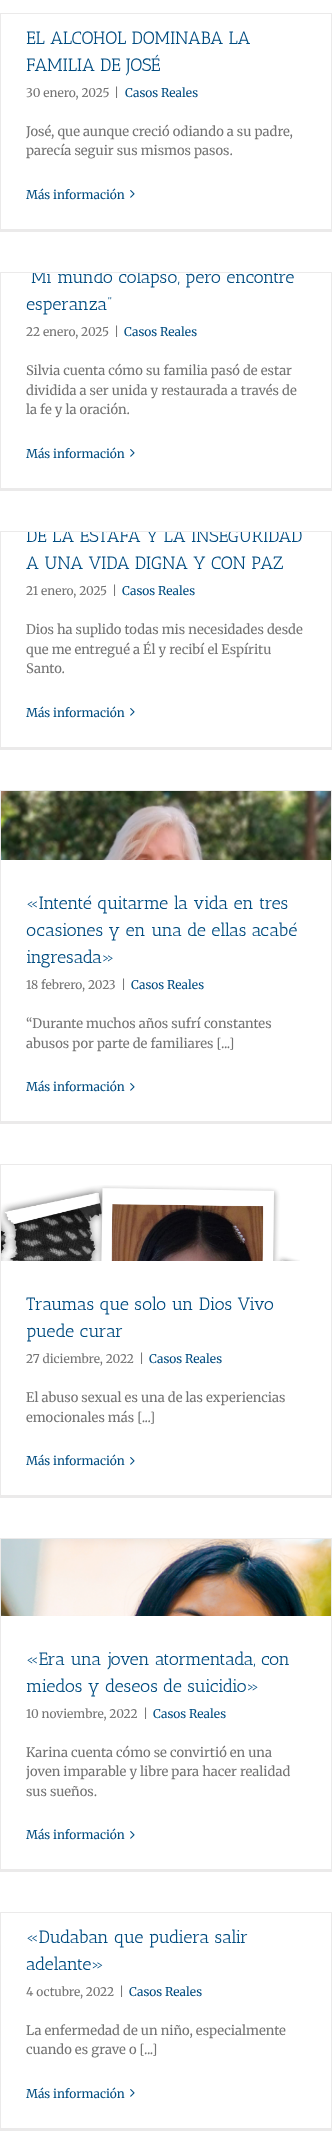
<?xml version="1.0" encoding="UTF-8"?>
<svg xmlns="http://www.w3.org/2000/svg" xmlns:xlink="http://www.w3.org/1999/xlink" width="332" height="2142">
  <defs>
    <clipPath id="clip1"><rect x="1" y="273" width="330" height="215" /></clipPath>
    <clipPath id="clip2"><rect x="1" y="532" width="330" height="215" /></clipPath>
  </defs>
  <rect width="100%" height="100%" fill="#ffffff" />
  <rect y="13" width="332" height="1" fill="#ebeaea" />
  <rect x="331" y="13" width="1" height="219" fill="#ebeaea" />
  <rect y="229" width="332" height="3" fill="#ebeaea" />
  <rect y="13" width="1" height="219" fill="#ebeaea" />
  <image x="130" y="190" width="5" height="8" xlink:href="image1.png" />
  <rect y="272" width="332" height="1" fill="#ebeaea" />
  <rect x="331" y="272" width="1" height="219" fill="#ebeaea" />
  <rect y="488" width="332" height="3" fill="#ebeaea" />
  <rect y="272" width="1" height="219" fill="#ebeaea" />
  <image x="130" y="449" width="5" height="8" xlink:href="image1.png" />
  <rect y="531" width="332" height="1" fill="#ebeaea" />
  <rect x="331" y="531" width="1" height="219" fill="#ebeaea" />
  <rect y="747" width="332" height="3" fill="#ebeaea" />
  <rect y="531" width="1" height="219" fill="#ebeaea" />
  <image x="130" y="708" width="5" height="8" xlink:href="image1.png" />
  <rect y="790" width="332" height="1" fill="#ebeaea" />
  <rect x="331" y="790" width="1" height="334" fill="#ebeaea" />
  <rect y="1121" width="332" height="3" fill="#ebeaea" />
  <rect y="790" width="1" height="334" fill="#ebeaea" />
  <image x="1" y="791" width="330" height="69" xlink:href="image2.png" />
  <image x="130" y="1083" width="5" height="8" xlink:href="image1.png" />
  <rect y="1164" width="332" height="1" fill="#ebeaea" />
  <rect x="331" y="1164" width="1" height="334" fill="#ebeaea" />
  <rect y="1495" width="332" height="3" fill="#ebeaea" />
  <rect y="1164" width="1" height="334" fill="#ebeaea" />
  <image x="1" y="1185" width="299" height="76" xlink:href="image3.png" />
  <image x="130" y="1457" width="5" height="8" xlink:href="image1.png" />
  <rect y="1538" width="332" height="1" fill="#ebeaea" />
  <rect x="331" y="1538" width="1" height="334" fill="#ebeaea" />
  <rect y="1869" width="332" height="3" fill="#ebeaea" />
  <rect y="1538" width="1" height="334" fill="#ebeaea" />
  <image x="1" y="1539" width="330" height="77" xlink:href="image4.png" />
  <image x="130" y="1831" width="5" height="8" xlink:href="image1.png" />
  <rect y="1912" width="332" height="1" fill="#ebeaea" />
  <rect x="331" y="1912" width="1" height="219" fill="#ebeaea" />
  <rect y="2128" width="332" height="3" fill="#ebeaea" />
  <rect y="1912" width="1" height="219" fill="#ebeaea" />
  <image x="130" y="2089" width="5" height="8" xlink:href="image1.png" />
  <text x="26" y="44" style="font-family: Antic Slab; font-size: 18px; fill: #004c80">EL ALCOHOL DOMINABA LA</text>
  <text x="26" y="71" style="font-family: Antic Slab; font-size: 18px; fill: #004c80">FAMILIA DE JOSÉ</text>
  <text x="26" y="97" style="font-family: Merriweather; font-size: 12px; fill: #747474">30 enero, 2025</text>
  <text x="114" y="97" style="font-family: Merriweather; font-size: 12px; fill: #747474">|</text>
  <text x="125" y="97" style="font-family: Merriweather; font-size: 12px; fill: #004c80">Casos Reales</text>
  <text x="26" y="136" style="font-family: Merriweather; font-size: 13px; fill: #747474">José, que aunque creció odiando a su padre,</text>
  <text x="26" y="155" style="font-family: Merriweather; font-size: 13px; fill: #747474">parecía seguir sus mismos pasos.</text>
  <text x="26" y="199" style="font-family: Merriweather; font-size: 12px; fill: #004c80">Más información</text>
  <g clip-path="url(#clip1)">
    <text x="31" y="283" style="font-family: Antic Slab; font-size: 18px; fill: #004c80">Mi mundo colapsó, pero encontré</text>
  </g>
  <text x="26" y="310" style="font-family: Antic Slab; font-size: 18px; fill: #004c80">esperanza”</text>
  <text x="26" y="336" style="font-family: Merriweather; font-size: 12px; fill: #747474">22 enero, 2025</text>
  <text x="114" y="336" style="font-family: Merriweather; font-size: 12px; fill: #747474">|</text>
  <text x="124" y="336" style="font-family: Merriweather; font-size: 12px; fill: #004c80">Casos Reales</text>
  <text x="26" y="375" style="font-family: Merriweather; font-size: 13px; fill: #747474">Silvia cuenta cómo su familia pasó de estar</text>
  <text x="26" y="395" style="font-family: Merriweather; font-size: 13px; fill: #747474">dividida a ser unida y restaurada a través de</text>
  <text x="26" y="414" style="font-family: Merriweather; font-size: 13px; fill: #747474">la fe y la oración.</text>
  <text x="26" y="458" style="font-family: Merriweather; font-size: 12px; fill: #004c80">Más información</text>
  <g clip-path="url(#clip2)">
    <text x="26" y="542" style="font-family: Antic Slab; font-size: 18px; fill: #004c80">DE LA ESTAFA Y LA INSEGURIDAD</text>
  </g>
  <text x="26" y="569" style="font-family: Antic Slab; font-size: 18px; fill: #004c80">A UNA VIDA DIGNA Y CON PAZ</text>
  <text x="26" y="595" style="font-family: Merriweather; font-size: 12px; fill: #747474">21 enero, 2025</text>
  <text x="112" y="595" style="font-family: Merriweather; font-size: 12px; fill: #747474">|</text>
  <text x="122" y="595" style="font-family: Merriweather; font-size: 12px; fill: #004c80">Casos Reales</text>
  <text x="26" y="634" style="font-family: Merriweather; font-size: 13px; fill: #747474">Dios ha suplido todas mis necesidades desde</text>
  <text x="26" y="654" style="font-family: Merriweather; font-size: 13px; fill: #747474">que me entregué a Él y recibí el Espíritu</text>
  <text x="26" y="673" style="font-family: Merriweather; font-size: 13px; fill: #747474">Santo.</text>
  <text x="26" y="717" style="font-family: Merriweather; font-size: 12px; fill: #004c80">Más información</text>
  <text x="26" y="909" style="font-family: Antic Slab; font-size: 18px; fill: #004c80">«Intenté quitarme la vida en tres</text>
  <text x="26" y="936" style="font-family: Antic Slab; font-size: 18px; fill: #004c80">ocasiones y en una de ellas acabé</text>
  <text x="26" y="963" style="font-family: Antic Slab; font-size: 18px; fill: #004c80">ingresada»</text>
  <text x="26" y="989" style="font-family: Merriweather; font-size: 12px; fill: #747474">18 febrero, 2023</text>
  <text x="121" y="989" style="font-family: Merriweather; font-size: 12px; fill: #747474">|</text>
  <text x="131" y="989" style="font-family: Merriweather; font-size: 12px; fill: #004c80">Casos Reales</text>
  <text x="26" y="1028" style="font-family: Merriweather; font-size: 13px; fill: #747474">“Durante muchos años sufrí constantes</text>
  <text x="26" y="1048" style="font-family: Merriweather; font-size: 13px; fill: #747474">abusos por parte de familiares [...]</text>
  <text x="26" y="1091" style="font-family: Merriweather; font-size: 12px; fill: #004c80">Más información</text>
  <text x="26" y="1310" style="font-family: Antic Slab; font-size: 18px; fill: #004c80">Traumas que solo un Dios Vivo</text>
  <text x="26" y="1337" style="font-family: Antic Slab; font-size: 18px; fill: #004c80">puede curar</text>
  <text x="26" y="1363" style="font-family: Merriweather; font-size: 12px; fill: #747474">27 diciembre, 2022</text>
  <text x="139" y="1363" style="font-family: Merriweather; font-size: 12px; fill: #747474">|</text>
  <text x="149" y="1363" style="font-family: Merriweather; font-size: 12px; fill: #004c80">Casos Reales</text>
  <text x="26" y="1402" style="font-family: Merriweather; font-size: 13px; fill: #747474">El abuso sexual es una de las experiencias</text>
  <text x="26" y="1422" style="font-family: Merriweather; font-size: 13px; fill: #747474">emocionales más [...]</text>
  <text x="26" y="1465" style="font-family: Merriweather; font-size: 12px; fill: #004c80">Más información</text>
  <text x="26" y="1665" style="font-family: Antic Slab; font-size: 18px; fill: #004c80">«Era una joven atormentada, con</text>
  <text x="26" y="1692" style="font-family: Antic Slab; font-size: 18px; fill: #004c80">miedos y deseos de suicidio»</text>
  <text x="26" y="1718" style="font-family: Merriweather; font-size: 12px; fill: #747474">10 noviembre, 2022</text>
  <text x="143" y="1718" style="font-family: Merriweather; font-size: 12px; fill: #747474">|</text>
  <text x="153" y="1718" style="font-family: Merriweather; font-size: 12px; fill: #004c80">Casos Reales</text>
  <text x="26" y="1757" style="font-family: Merriweather; font-size: 13px; fill: #747474">Karina cuenta cómo se convirtió en una</text>
  <text x="26" y="1776" style="font-family: Merriweather; font-size: 13px; fill: #747474">joven imparable y libre para hacer realidad</text>
  <text x="26" y="1796" style="font-family: Merriweather; font-size: 13px; fill: #747474">sus sueños.</text>
  <text x="26" y="1839" style="font-family: Merriweather; font-size: 12px; fill: #004c80">Más información</text>
  <text x="26" y="1943" style="font-family: Antic Slab; font-size: 18px; fill: #004c80">«Dudaban que pudiera salir</text>
  <text x="26" y="1970" style="font-family: Antic Slab; font-size: 18px; fill: #004c80">adelante»</text>
  <text x="26" y="1996" style="font-family: Merriweather; font-size: 12px; fill: #747474">4 octubre, 2022</text>
  <text x="119" y="1996" style="font-family: Merriweather; font-size: 12px; fill: #747474">|</text>
  <text x="129" y="1996" style="font-family: Merriweather; font-size: 12px; fill: #004c80">Casos Reales</text>
  <text x="26" y="2035" style="font-family: Merriweather; font-size: 13px; fill: #747474">La enfermedad de un niño, especialmente</text>
  <text x="26" y="2054" style="font-family: Merriweather; font-size: 13px; fill: #747474">cuando es grave o [...]</text>
  <text x="26" y="2098" style="font-family: Merriweather; font-size: 12px; fill: #004c80">Más información</text>
</svg>
